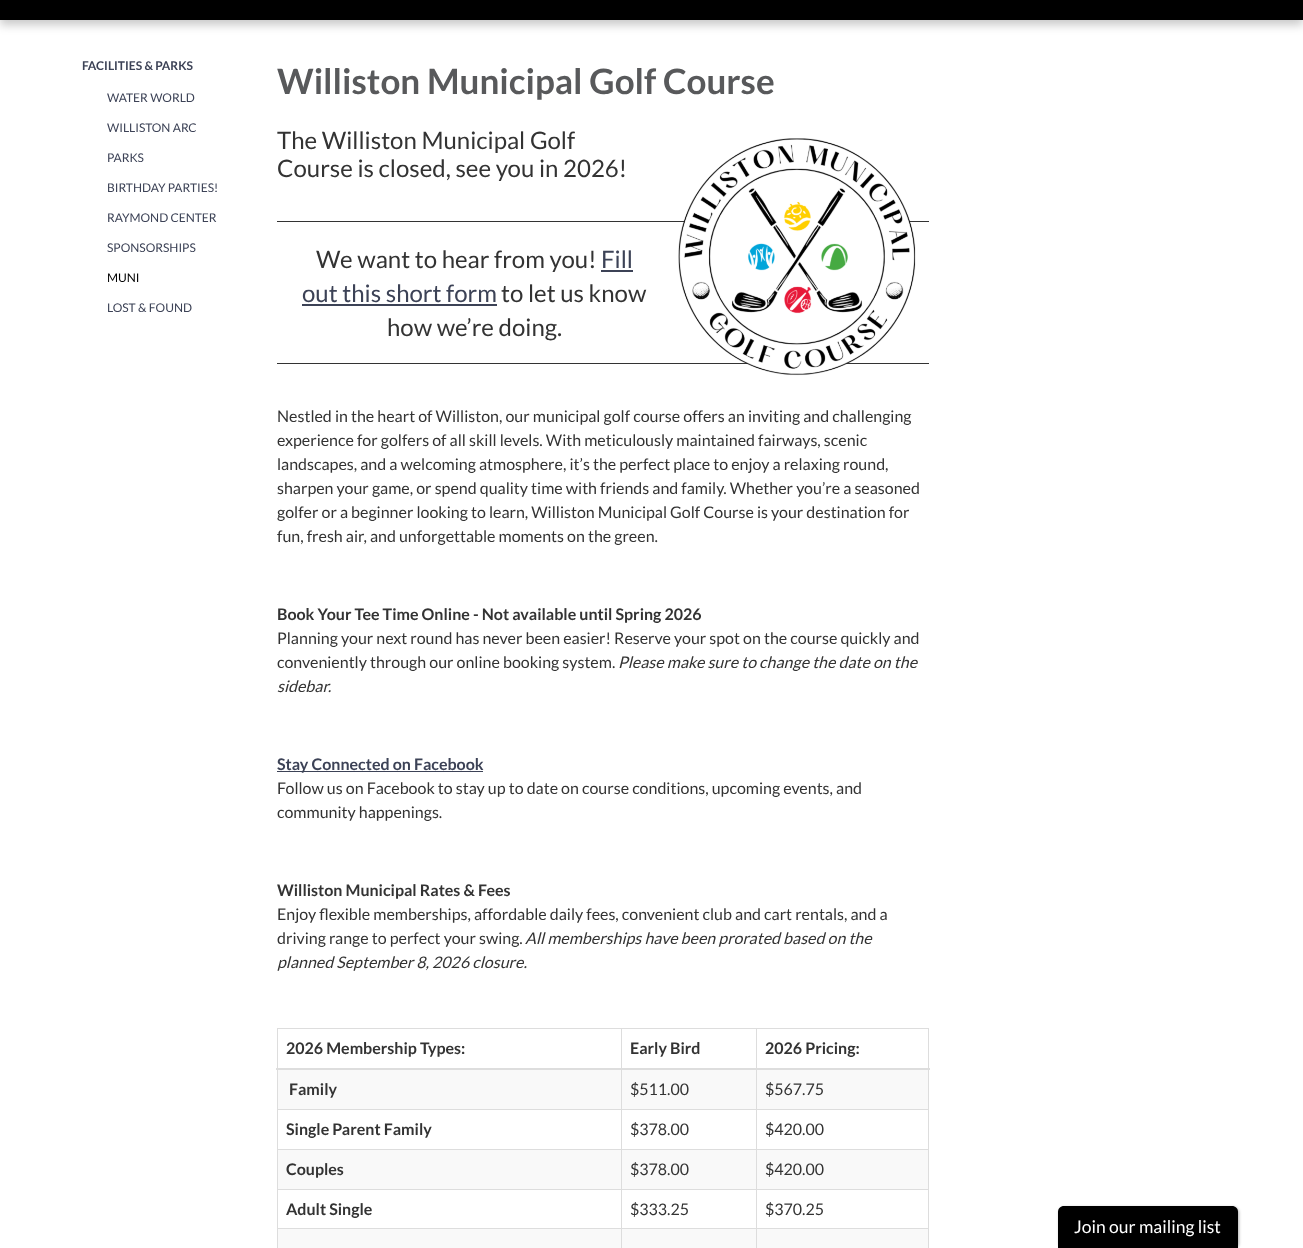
<?xml version="1.0" encoding="UTF-8"?>
<svg xmlns="http://www.w3.org/2000/svg" xmlns:xlink="http://www.w3.org/1999/xlink" width="1303" height="1248">
  <rect width="100%" height="100%" fill="#ffffff" />
  <rect y="-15" width="1303" height="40" fill="#000000" fill-opacity="0.21" filter="blur(5px)" />
  <rect width="1303" height="20" fill="#000000" />
  <rect x="277" y="221" width="652" height="1" fill="#333333" />
  <rect x="277" y="363" width="652" height="1" fill="#333333" />
  <image x="678" y="138" width="238" height="238" xlink:href="image1.png" />
  <rect x="601" y="270" width="32" height="2" fill="#3c4256" />
  <rect x="302" y="304" width="195" height="2" fill="#3c4256" />
  <rect x="277" y="771" width="206" height="1" fill="#3c4256" />
  <rect x="277" y="1028" width="652" height="1" fill="#dddddd" />
  <rect x="928" y="1028" width="1" height="220" fill="#dddddd" />
  <rect x="277" y="1028" width="1" height="220" fill="#dddddd" />
  <rect x="278" y="1070" width="650" height="39" fill="#f9f9f9" />
  <rect x="756" y="1109" width="173" height="1" fill="#dddddd" />
  <rect x="756" y="1149" width="173" height="1" fill="#dddddd" />
  <rect x="278" y="1150" width="650" height="39" fill="#f9f9f9" />
  <rect x="756" y="1189" width="173" height="1" fill="#dddddd" />
  <rect x="756" y="1228" width="173" height="1" fill="#dddddd" />
  <rect x="278" y="1229" width="650" height="19" fill="#f9f9f9" />
  <rect x="756" y="1228" width="1" height="20" fill="#dddddd" />
  <rect x="621" y="1228" width="136" height="1" fill="#dddddd" />
  <rect x="756" y="1189" width="1" height="40" fill="#dddddd" />
  <rect x="621" y="1189" width="136" height="1" fill="#dddddd" />
  <rect x="756" y="1149" width="1" height="41" fill="#dddddd" />
  <rect x="621" y="1149" width="136" height="1" fill="#dddddd" />
  <rect x="756" y="1109" width="1" height="41" fill="#dddddd" />
  <rect x="621" y="1109" width="136" height="1" fill="#dddddd" />
  <rect x="621" y="1228" width="1" height="20" fill="#dddddd" />
  <rect x="277" y="1228" width="345" height="1" fill="#dddddd" />
  <rect x="621" y="1189" width="1" height="40" fill="#dddddd" />
  <rect x="277" y="1189" width="345" height="1" fill="#dddddd" />
  <rect x="621" y="1149" width="1" height="41" fill="#dddddd" />
  <rect x="277" y="1149" width="345" height="1" fill="#dddddd" />
  <rect x="621" y="1109" width="1" height="41" fill="#dddddd" />
  <rect x="277" y="1109" width="345" height="1" fill="#dddddd" />
  <rect x="621" y="1028" width="1" height="82" fill="#dddddd" />
  <rect x="756" y="1028" width="1" height="82" fill="#dddddd" />
  <rect x="276" y="1068" width="654" height="2" fill="#dddddd" />
  <rect x="1059" y="1207" width="180" height="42" rx="6" fill="#000000" fill-opacity="0.3" filter="blur(1.5px)" />
  <path d="M 1064 1206 h 168 c 3.5 0 6 2.5 6 6 v 36 h -180 v -36 c 0 -3.5 2.5 -6 6 -6 z" fill="#000000" />
  <text x="82" y="70" style="font-family: Lato; font-size: 12px; font-weight: bold; fill: #3c4256">FACILITIES &amp; PARKS</text>
  <text x="107" y="102" style="font-family: Lato; font-size: 12px; fill: #3c4256">WATER WORLD</text>
  <text x="107" y="132" style="font-family: Lato; font-size: 12px; fill: #3c4256">WILLISTON ARC</text>
  <text x="107" y="162" style="font-family: Lato; font-size: 12px; fill: #3c4256">PARKS</text>
  <text x="107" y="192" style="font-family: Lato; font-size: 12px; fill: #3c4256">BIRTHDAY PARTIES!</text>
  <text x="107" y="222" style="font-family: Lato; font-size: 12px; fill: #3c4256">RAYMOND CENTER</text>
  <text x="107" y="252" style="font-family: Lato; font-size: 12px; fill: #3c4256">SPONSORSHIPS</text>
  <text x="107" y="282" style="font-family: Lato; font-size: 12px; fill: #000000">MUNI</text>
  <text x="107" y="312" style="font-family: Lato; font-size: 12px; fill: #3c4256">LOST &amp; FOUND</text>
  <text x="277" y="94" style="font-family: Lato; font-size: 35px; font-weight: bold; fill: #58595b">Williston Municipal Golf Course</text>
  <text x="277" y="149" style="font-family: Lato; font-size: 24px; fill: #333333">The Williston Municipal Golf</text>
  <text x="277" y="177" style="font-family: Lato; font-size: 24px; fill: #333333">Course is closed, see you in 2026!</text>
  <text x="316" y="268" style="font-family: Lato; font-size: 24px; fill: #333333">We want to hear from you!</text>
  <text x="601" y="268" style="font-family: Lato; font-size: 24px; fill: #3c4256">Fill</text>
  <text x="302" y="302" style="font-family: Lato; font-size: 24px; fill: #3c4256">out this short form</text>
  <text x="501" y="302" style="font-family: Lato; font-size: 24px; fill: #333333">to let us know</text>
  <text x="387" y="336" style="font-family: Lato; font-size: 24px; fill: #333333">how we’re doing.</text>
  <text x="277" y="422" style="font-family: Lato; font-size: 16px; fill: #333333">Nestled in the heart of Williston, our municipal golf course offers an inviting and challenging</text>
  <text x="277" y="446" style="font-family: Lato; font-size: 16px; fill: #333333">experience for golfers of all skill levels. With meticulously maintained fairways, scenic</text>
  <text x="277" y="470" style="font-family: Lato; font-size: 16px; fill: #333333">landscapes, and a welcoming atmosphere, it’s the perfect place to enjoy a relaxing round,</text>
  <text x="277" y="494" style="font-family: Lato; font-size: 16px; fill: #333333">sharpen your game, or spend quality time with friends and family. Whether you’re a seasoned</text>
  <text x="277" y="518" style="font-family: Lato; font-size: 16px; fill: #333333">golfer or a beginner looking to learn, Williston Municipal Golf Course is your destination for</text>
  <text x="277" y="542" style="font-family: Lato; font-size: 16px; fill: #333333">fun, fresh air, and unforgettable moments on the green.</text>
  <text x="277" y="620" style="font-family: Lato; font-size: 16px; font-weight: bold; fill: #333333">Book Your Tee Time Online - Not available until Spring 2026</text>
  <text x="277" y="644" style="font-family: Lato; font-size: 16px; fill: #333333">Planning your next round has never been easier! Reserve your spot on the course quickly and</text>
  <text x="277" y="668" style="font-family: Lato; font-size: 16px; fill: #333333">conveniently through our online booking system.</text>
  <text x="618" y="668" style="font-family: Lato; font-size: 16px; font-style: italic; fill: #333333">Please make sure to change the date on the</text>
  <text x="277" y="692" style="font-family: Lato; font-size: 16px; font-style: italic; fill: #333333">sidebar.</text>
  <text x="277" y="770" style="font-family: Lato; font-size: 16px; font-weight: bold; fill: #3c4256">Stay Connected on Facebook</text>
  <text x="277" y="794" style="font-family: Lato; font-size: 16px; fill: #333333">Follow us on Facebook to stay up to date on course conditions, upcoming events, and</text>
  <text x="277" y="818" style="font-family: Lato; font-size: 16px; fill: #333333">community happenings.</text>
  <text x="277" y="896" style="font-family: Lato; font-size: 16px; font-weight: bold; fill: #333333">Williston Municipal Rates &amp; Fees</text>
  <text x="277" y="920" style="font-family: Lato; font-size: 16px; fill: #333333">Enjoy flexible memberships, affordable daily fees, convenient club and cart rentals, and a</text>
  <text x="277" y="944" style="font-family: Lato; font-size: 16px; fill: #333333">driving range to perfect your swing.</text>
  <text x="525" y="944" style="font-family: Lato; font-size: 16px; font-style: italic; fill: #333333">All memberships have been prorated based on the</text>
  <text x="277" y="968" style="font-family: Lato; font-size: 16px; font-style: italic; fill: #333333">planned September 8, 2026 closure.</text>
  <text x="286" y="1054" style="font-family: Lato; font-size: 16px; font-weight: bold; fill: #333333">2026 Membership Types:</text>
  <text x="630" y="1054" style="font-family: Lato; font-size: 16px; font-weight: bold; fill: #333333">Early Bird</text>
  <text x="765" y="1054" style="font-family: Lato; font-size: 16px; font-weight: bold; fill: #333333">2026 Pricing:</text>
  <text x="289" y="1095" style="font-family: Lato; font-size: 16px; font-weight: bold; fill: #333333">Family</text>
  <text x="630" y="1095" style="font-family: Lato; font-size: 16px; fill: #333333">$511.00</text>
  <text x="765" y="1095" style="font-family: Lato; font-size: 16px; fill: #333333">$567.75</text>
  <text x="286" y="1135" style="font-family: Lato; font-size: 16px; font-weight: bold; fill: #333333">Single Parent Family</text>
  <text x="630" y="1135" style="font-family: Lato; font-size: 16px; fill: #333333">$378.00</text>
  <text x="765" y="1135" style="font-family: Lato; font-size: 16px; fill: #333333">$420.00</text>
  <text x="286" y="1175" style="font-family: Lato; font-size: 16px; font-weight: bold; fill: #333333">Couples</text>
  <text x="630" y="1175" style="font-family: Lato; font-size: 16px; fill: #333333">$378.00</text>
  <text x="765" y="1175" style="font-family: Lato; font-size: 16px; fill: #333333">$420.00</text>
  <text x="286" y="1215" style="font-family: Lato; font-size: 16px; font-weight: bold; fill: #333333">Adult Single</text>
  <text x="630" y="1215" style="font-family: Lato; font-size: 16px; fill: #333333">$333.25</text>
  <text x="765" y="1215" style="font-family: Lato; font-size: 16px; fill: #333333">$370.25</text>
  <text x="1074" y="1233" style="font-family: Lato; font-size: 17.5px; fill: #ffffff">Join our mailing list</text>
</svg>
